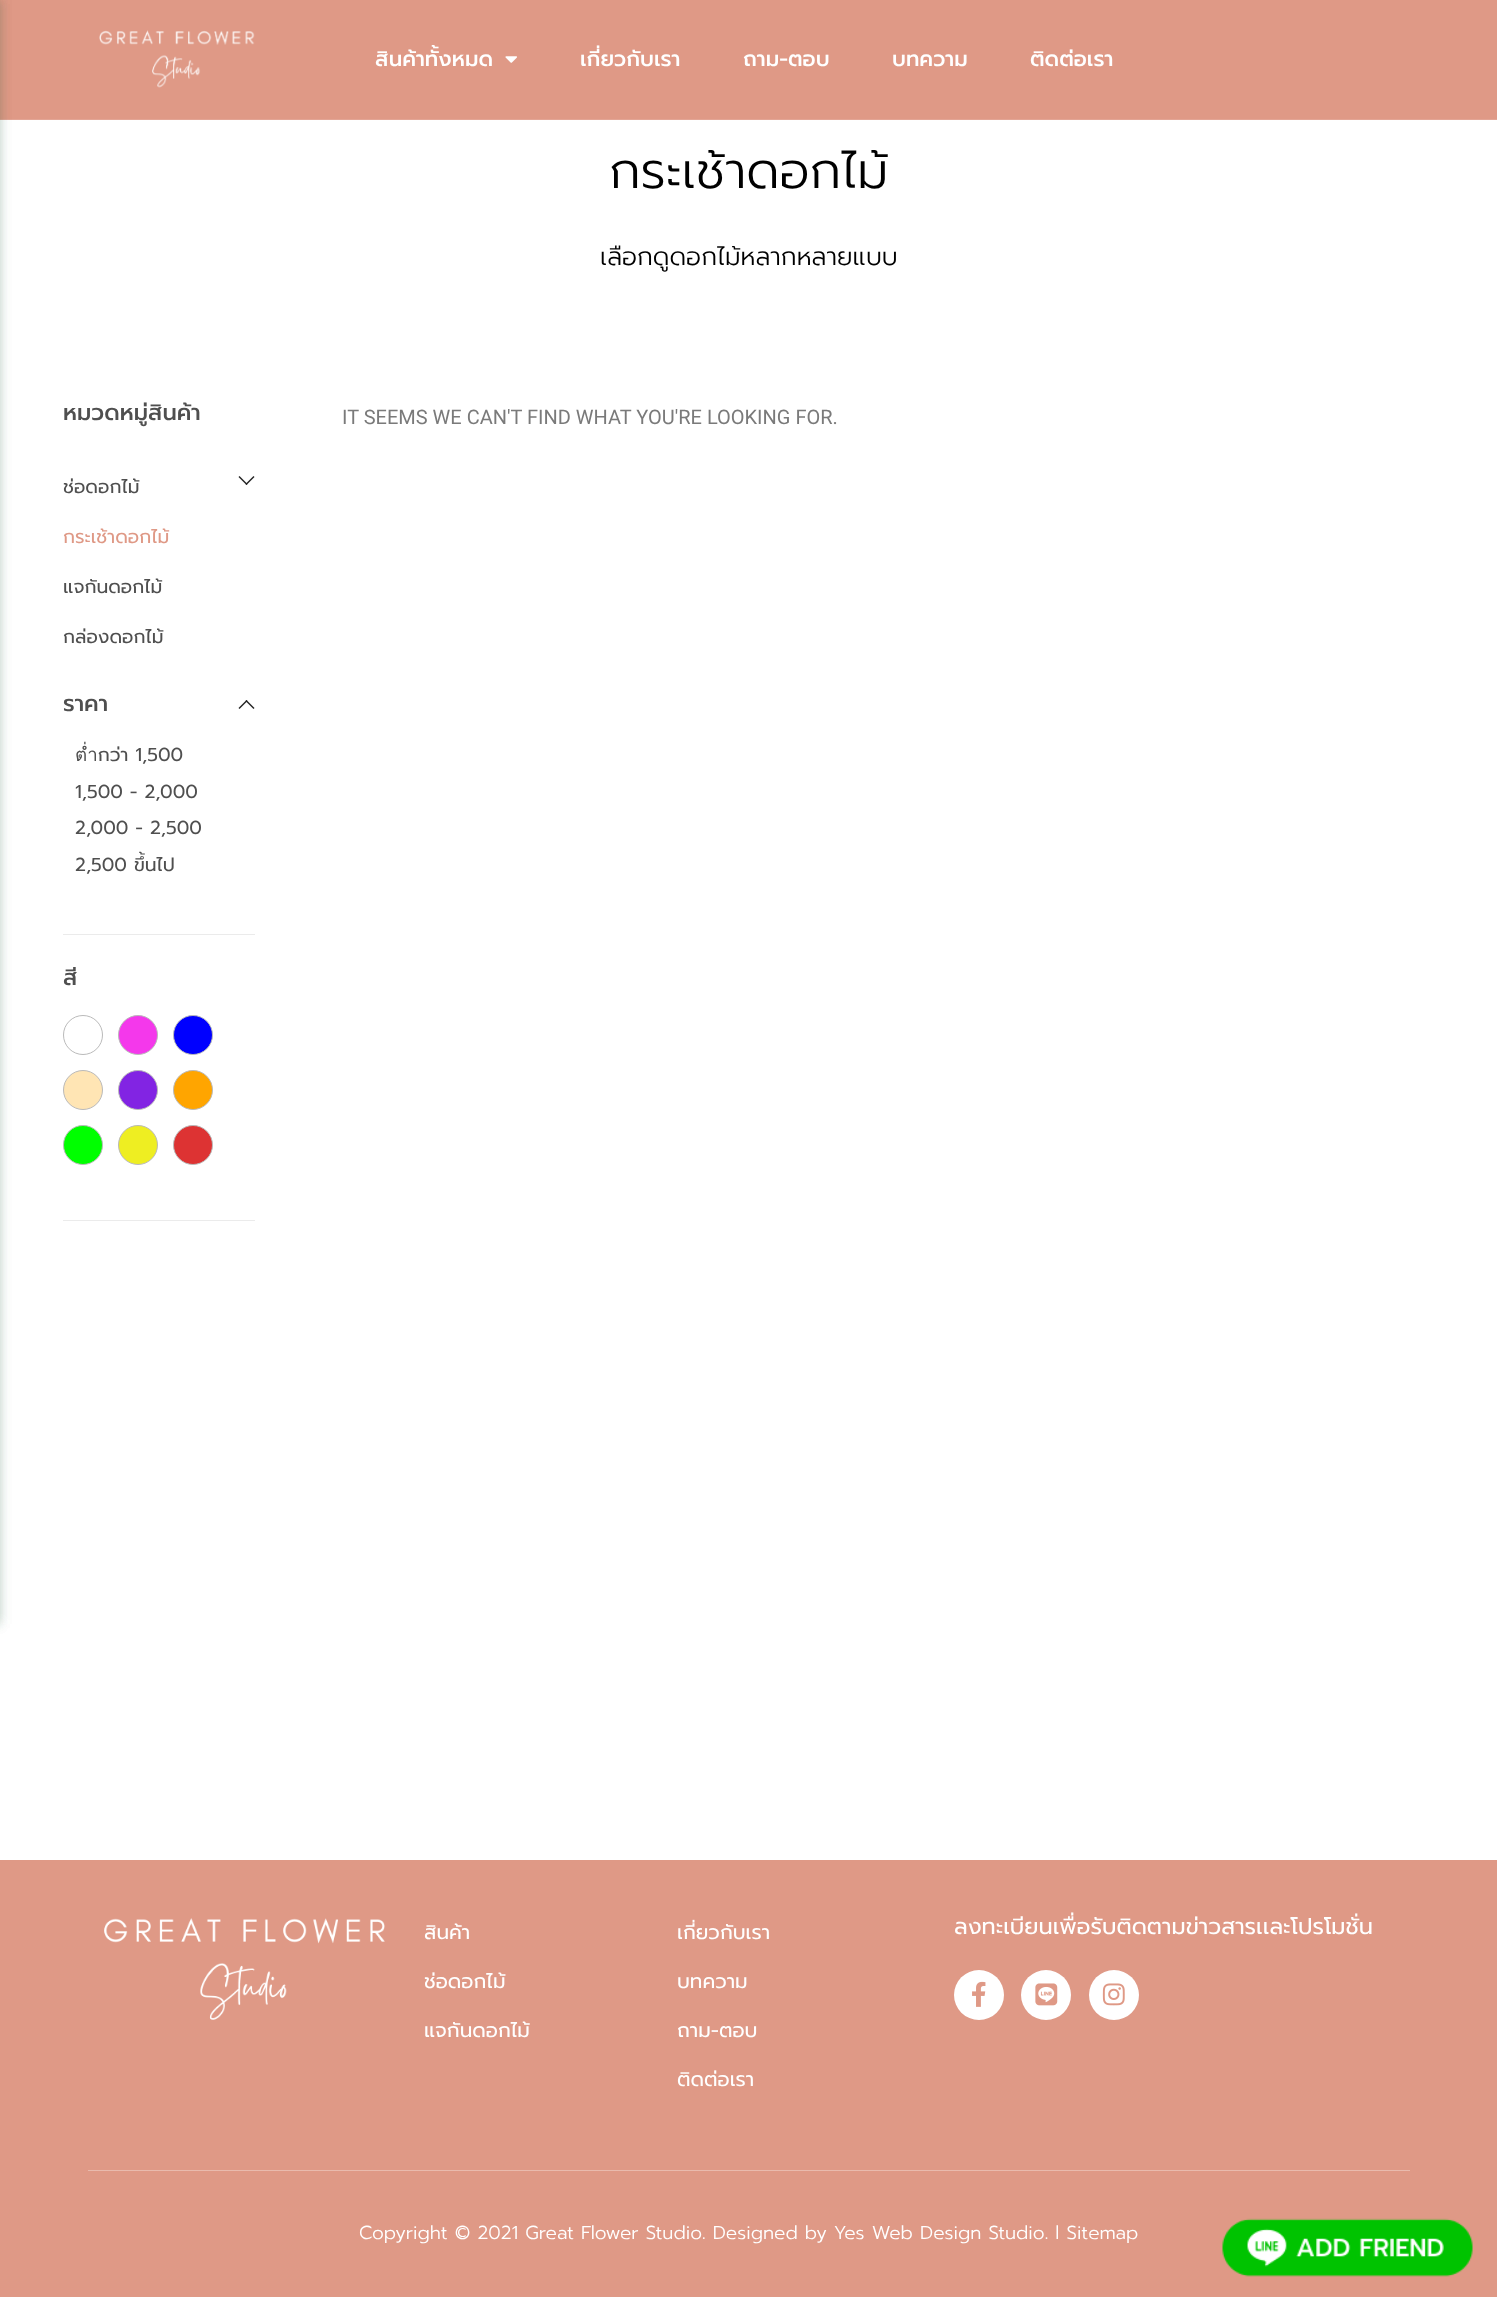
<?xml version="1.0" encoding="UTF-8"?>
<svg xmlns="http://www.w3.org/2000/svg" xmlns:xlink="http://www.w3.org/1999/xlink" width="1497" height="2297">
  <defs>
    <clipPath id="clip1"><rect x="63" y="461" width="192" height="200" /></clipPath>
  </defs>
  <rect width="100%" height="100%" fill="#ffffff" />
  <rect width="1497" height="119" fill="#df9986" />
  <rect y="119" width="1497" height="1" fill="#e3a595" />
  <rect x="-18" width="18" height="1624" fill="#0c5130" fill-opacity="0.15" filter="blur(6px)" />
  <rect x="-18" width="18" height="1624" fill="#0c5130" fill-opacity="0.15" filter="blur(6px)" />
  <image x="99" y="30" width="156" height="58" xlink:href="image1.png" />
  <image x="505" y="56" width="12" height="7" xlink:href="image2.png" />
  <path d="M 246.5 485 l -8 -8 l 1 -1 l 8 8 z" fill="#222222" />
  <path d="M 246.5 485 l -1 -1 l 8 -8 l 1 1 z" fill="#222222" />
  <rect x="63" y="934" width="192" height="1" fill="#ebebeb" />
  <path d="M 246.5 700 l 8 8 l -1 1 l -8 -8 z" fill="#222222" />
  <path d="M 246.5 700 l 1 1 l -8 8 l -1 -1 z" fill="#222222" />
  <rect x="63" y="1220" width="192" height="1" fill="#ebebeb" />
  <circle cx="83" cy="1035" r="19.5" fill="none" stroke="#bababa" />
  <circle cx="138" cy="1035" r="19.5" fill="#f438eb" stroke="#bababa" />
  <circle cx="193" cy="1035" r="19.5" fill="#0000ff" stroke="#bababa" />
  <circle cx="83" cy="1090" r="19.5" fill="#ffe5b4" stroke="#bababa" />
  <circle cx="138" cy="1090" r="19.5" fill="#8224e3" stroke="#bababa" />
  <circle cx="193" cy="1090" r="19.5" fill="#ffa500" stroke="#bababa" />
  <circle cx="83" cy="1145" r="19.5" fill="#00ff00" stroke="#bababa" />
  <circle cx="138" cy="1145" r="19.5" fill="#eeee22" stroke="#bababa" />
  <circle cx="193" cy="1145" r="19.5" fill="#dd3333" stroke="#bababa" />
  <rect y="1860" width="1497" height="437" fill="#df9986" />
  <image x="104" y="1918" width="281" height="102" xlink:href="image3.png" />
  <circle cx="979" cy="1995" r="25" fill="#ffffff" />
  <image x="972" y="1981" width="14" height="26" xlink:href="image4.png" />
  <circle cx="1046" cy="1995" r="25" fill="#ffffff" />
  <image x="1035" y="1983" width="23" height="23" xlink:href="image5.png" />
  <circle cx="1114" cy="1995" r="25" fill="#ffffff" />
  <image x="1102" y="1983" width="23" height="23" xlink:href="image6.png" />
  <rect x="88" y="2170" width="1322" height="1" fill="#e9baad" />
  <image x="1222" y="2218" width="251" height="59" xlink:href="image7.png" />
  <text x="375" y="66" style="font-family: Prompt; font-size: 21.25px; font-weight: 500; fill: #ffffff">สินค้าทั้งหมด</text>
  <text x="580" y="66" style="font-family: Prompt; font-size: 21.25px; font-weight: 500; fill: #ffffff">เกี่ยวกับเรา</text>
  <text x="743" y="66" style="font-family: Prompt; font-size: 21.25px; font-weight: 500; fill: #ffffff">ถาม-ตอบ</text>
  <text x="892" y="66" style="font-family: Prompt; font-size: 21.25px; font-weight: 500; fill: #ffffff">บทความ</text>
  <text x="1030" y="66" style="font-family: Prompt; font-size: 21.25px; font-weight: 500; fill: #ffffff">ติดต่อเรา</text>
  <text x="609" y="188" style="font-family: Prompt; font-size: 50px; font-weight: 300; fill: #000000">กระเช้าดอกไม้</text>
  <text x="600" y="265" style="font-family: Prompt; font-size: 25px; font-weight: 300; fill: #000000">เลือกดูดอกไม้หลากหลายแบบ</text>
  <text x="63" y="420" style="font-family: Prompt; font-size: 22.5px; font-weight: 500; fill: #4f4f4f">หมวดหมู่สินค้า</text>
  <g clip-path="url(#clip1)">
    <text x="63" y="493" style="font-family: Prompt; font-size: 18.75px; fill: #4f4f4f">ช่อดอกไม้</text>
  </g>
  <text x="63" y="543" style="font-family: Prompt; font-size: 18.75px; fill: #df9986">กระเช้าดอกไม้</text>
  <text x="63" y="593" style="font-family: Prompt; font-size: 18.75px; fill: #4f4f4f">แจกันดอกไม้</text>
  <text x="63" y="643" style="font-family: Prompt; font-size: 18.75px; fill: #4f4f4f">กล่องดอกไม้</text>
  <text x="63" y="711" style="font-family: Prompt; font-size: 22.5px; font-weight: 500; fill: #4f4f4f">ราคา</text>
  <text x="75" y="761" style="font-family: Prompt; font-size: 18.75px; fill: #4f4f4f">ต่ำกว่า 1,500</text>
  <text x="75" y="798" style="font-family: Prompt; font-size: 18.75px; fill: #4f4f4f">1,500 - 2,000</text>
  <text x="75" y="834" style="font-family: Prompt; font-size: 18.75px; fill: #4f4f4f">2,000 - 2,500</text>
  <text x="75" y="871" style="font-family: Prompt; font-size: 18.75px; fill: #4f4f4f">2,500 ขึ้นไป</text>
  <text x="63" y="985" style="font-family: Prompt; font-size: 22.5px; font-weight: 500; fill: #4f4f4f">สี</text>
  <text x="342" y="424" style="font-family: Roboto; font-size: 20px; fill: #7a7a7a">IT SEEMS WE CAN'T FIND WHAT YOU'RE LOOKING FOR.</text>
  <text x="424" y="1939" style="font-family: Prompt; font-size: 20px; fill: #ffffff">สินค้า</text>
  <text x="424" y="1988" style="font-family: Prompt; font-size: 20px; fill: #ffffff">ช่อดอกไม้</text>
  <text x="424" y="2037" style="font-family: Prompt; font-size: 20px; fill: #ffffff">แจกันดอกไม้</text>
  <text x="677" y="1939" style="font-family: Prompt; font-size: 20px; fill: #ffffff">เกี่ยวกับเรา</text>
  <text x="677" y="1988" style="font-family: Prompt; font-size: 20px; fill: #ffffff">บทความ</text>
  <text x="677" y="2037" style="font-family: Prompt; font-size: 20px; fill: #ffffff">ถาม-ตอบ</text>
  <text x="677" y="2086" style="font-family: Prompt; font-size: 20px; fill: #ffffff">ติดต่อเรา</text>
  <text x="954" y="1934" style="font-family: Prompt; font-size: 22.5px; fill: #ffffff">ลงทะเบียนเพื่อรับติดตามข่าวสารเเละโปรโมชั่น</text>
  <text x="359" y="2239" style="font-family: Prompt; font-size: 18.75px; font-weight: 300; fill: #ffffff">Copyright © 2021 Great Flower Studio. Designed by Yes Web Design Studio. l Sitemap</text>
</svg>
